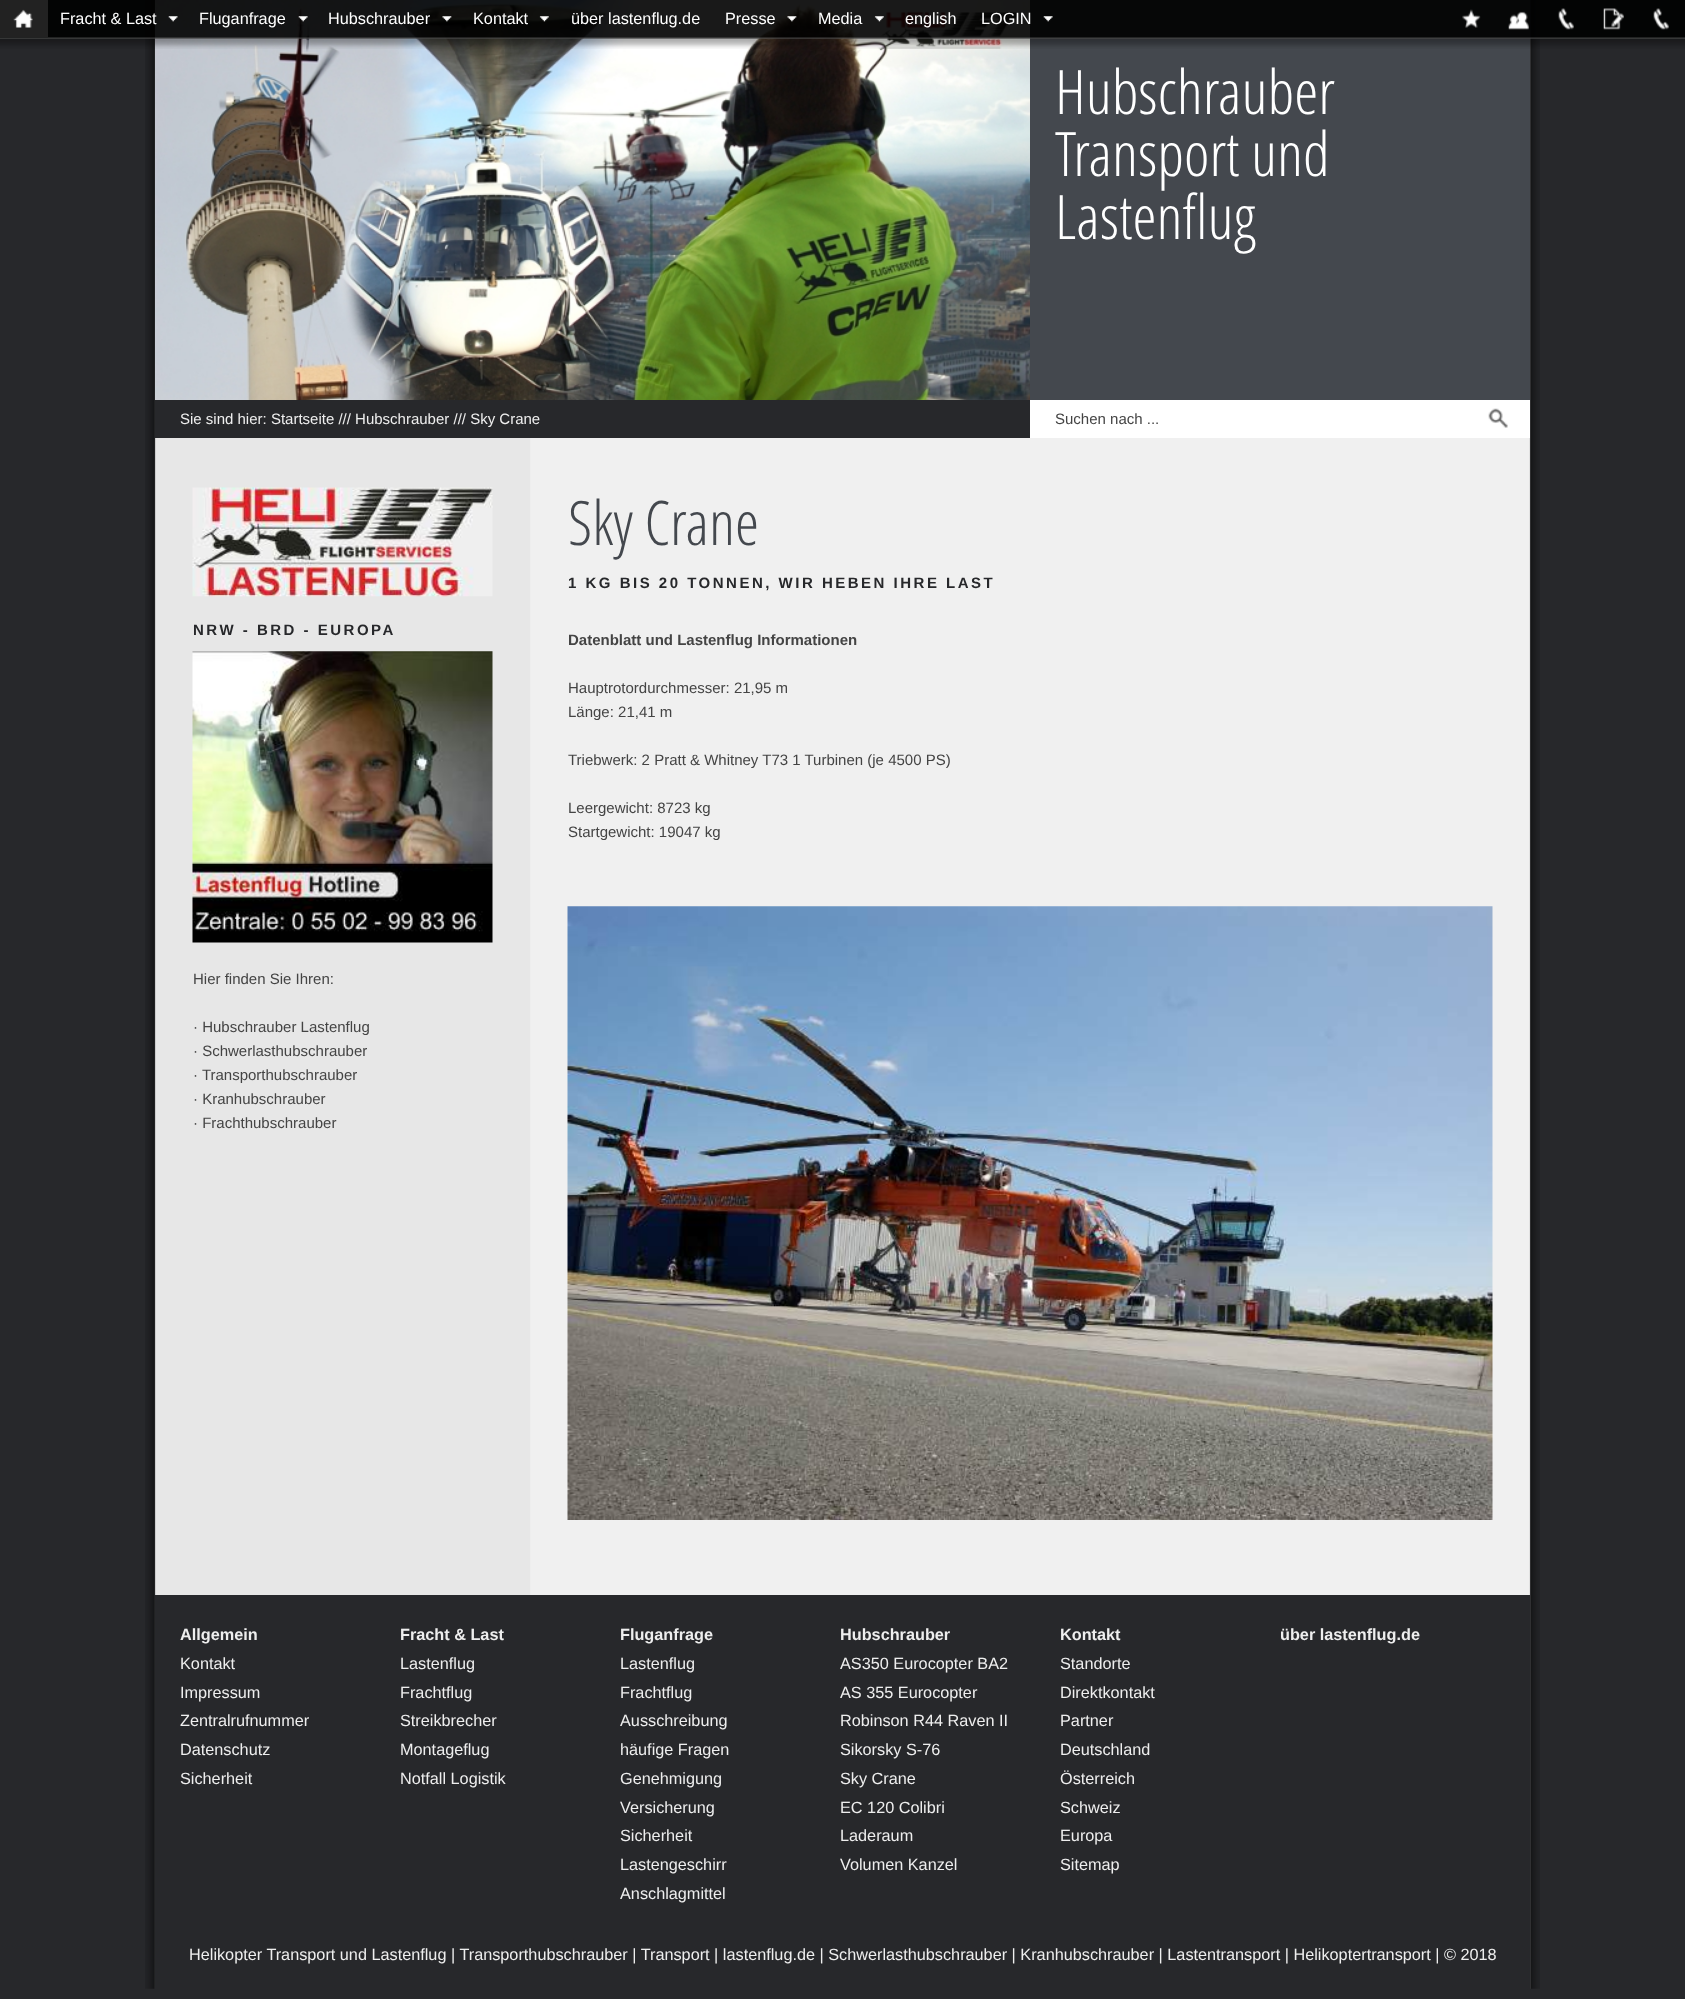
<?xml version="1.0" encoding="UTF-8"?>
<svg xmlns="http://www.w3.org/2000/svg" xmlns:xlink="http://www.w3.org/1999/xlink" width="1685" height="1999">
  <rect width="100%" height="100%" fill="#27282b" />
  <image x="145" y="0" width="1395" height="1989" xlink:href="image14.png" />
  <image x="155" y="0" width="875" height="400" xlink:href="image15.png" />
  <rect x="1030" width="500" height="400" fill="#44484e" />
  <image x="0" y="0" width="1685" height="49" xlink:href="image1.png" />
  <rect width="48" height="37" fill="#222222" />
  <image x="13" y="9" width="20" height="19" xlink:href="image2.png" />
  <image x="168" y="16" width="10" height="6" xlink:href="image3.png" />
  <image x="298" y="16" width="10" height="6" xlink:href="image4.png" />
  <image x="442" y="16" width="10" height="6" xlink:href="image5.png" />
  <image x="539" y="16" width="10" height="6" xlink:href="image6.png" />
  <image x="787" y="16" width="10" height="6" xlink:href="image7.png" />
  <image x="874" y="16" width="10" height="6" xlink:href="image8.png" />
  <image x="1043" y="16" width="10" height="6" xlink:href="image9.png" />
  <image x="1462" y="9" width="19" height="19" xlink:href="image10.png" />
  <image x="1508" y="11" width="21" height="19" xlink:href="image11.png" />
  <image x="1558" y="8" width="16" height="22" xlink:href="image12.png" />
  <image x="1603" y="8" width="21" height="22" xlink:href="image13.png" />
  <image x="1653" y="8" width="16" height="22" xlink:href="image12.png" />
  <rect x="155" y="400" width="875" height="38" fill="#27282b" />
  <rect x="1030" y="400" width="500" height="38" fill="#ffffff" />
  <image x="1488" y="408" width="20" height="20" xlink:href="image16.png" />
  <image x="192" y="487" width="301" height="110" xlink:href="image17.png" />
  <image x="192" y="651" width="301" height="292" xlink:href="image18.png" />
  <image x="567" y="906" width="926" height="614" xlink:href="image19.png" />
  <rect x="155" y="1595" width="1375" height="394" fill="#27282b" />
  <text x="60" y="24" style="font-family: Liberation Sans; font-size: 16.25px; fill: #ffffff">Fracht &amp; Last</text>
  <text x="199" y="24" style="font-family: Liberation Sans; font-size: 16.25px; fill: #ffffff">Fluganfrage</text>
  <text x="328" y="24" style="font-family: Liberation Sans; font-size: 16.25px; fill: #ffffff">Hubschrauber</text>
  <text x="473" y="24" style="font-family: Liberation Sans; font-size: 16.25px; fill: #ffffff">Kontakt</text>
  <text x="571" y="24" style="font-family: Liberation Sans; font-size: 16.25px; fill: #ffffff">über lastenflug.de</text>
  <text x="725" y="24" style="font-family: Liberation Sans; font-size: 16.25px; fill: #ffffff">Presse</text>
  <text x="818" y="24" style="font-family: Liberation Sans; font-size: 16.25px; fill: #ffffff">Media</text>
  <text x="905" y="24" style="font-family: Liberation Sans; font-size: 16.25px; fill: #ffffff">english</text>
  <text x="981" y="24" style="font-family: Liberation Sans; font-size: 16.25px; fill: #ffffff">LOGIN</text>
  <text x="1055" y="114" style="font-family: Open Sans; font-size: 62.5px; font-weight: 300; fill: #ffffff">Hubschrauber</text>
  <text x="1055" y="176" style="font-family: Open Sans; font-size: 62.5px; font-weight: 300; fill: #ffffff">Transport und</text>
  <text x="1055" y="239" style="font-family: Open Sans; font-size: 62.5px; font-weight: 300; fill: #ffffff">Lastenflug</text>
  <text x="180" y="424" style="font-family: Liberation Sans; font-size: 15px; fill: #eeeeee">Sie sind hier: Startseite /// Hubschrauber /// Sky Crane</text>
  <text x="1055" y="424" style="font-family: Liberation Sans; font-size: 15px; fill: #444444">Suchen nach ...</text>
  <text x="193" y="635" style="font-family: Liberation Sans; font-size: 15px; font-weight: bold; letter-spacing: 2.5px; fill: #27282b">NRW - BRD - EUROPA</text>
  <text x="193" y="984" style="font-family: Liberation Sans; font-size: 15px; fill: #444444">Hier finden Sie Ihren:</text>
  <text x="193" y="1032" style="font-family: Liberation Sans; font-size: 15px; fill: #444444">· Hubschrauber Lastenflug</text>
  <text x="193" y="1056" style="font-family: Liberation Sans; font-size: 15px; fill: #444444">· Schwerlasthubschrauber</text>
  <text x="193" y="1080" style="font-family: Liberation Sans; font-size: 15px; fill: #444444">· Transporthubschrauber</text>
  <text x="193" y="1104" style="font-family: Liberation Sans; font-size: 15px; fill: #444444">· Kranhubschrauber</text>
  <text x="193" y="1128" style="font-family: Liberation Sans; font-size: 15px; fill: #444444">· Frachthubschrauber</text>
  <text x="568" y="545" style="font-family: Open Sans; font-size: 62.5px; font-weight: 300; fill: #44484e">Sky Crane</text>
  <text x="568" y="588" style="font-family: Liberation Sans; font-size: 15px; font-weight: bold; letter-spacing: 2.5px; fill: #27282b">1 KG BIS 20 TONNEN, WIR HEBEN IHRE LAST</text>
  <text x="568" y="645" style="font-family: Liberation Sans; font-size: 15px; font-weight: bold; fill: #444444">Datenblatt und Lastenflug Informationen</text>
  <text x="568" y="693" style="font-family: Liberation Sans; font-size: 15px; fill: #444444">Hauptrotordurchmesser: 21,95 m</text>
  <text x="568" y="717" style="font-family: Liberation Sans; font-size: 15px; fill: #444444">Länge: 21,41 m</text>
  <text x="568" y="765" style="font-family: Liberation Sans; font-size: 15px; fill: #444444">Triebwerk: 2 Pratt &amp; Whitney T73 1 Turbinen (je 4500 PS)</text>
  <text x="568" y="813" style="font-family: Liberation Sans; font-size: 15px; fill: #444444">Leergewicht: 8723 kg</text>
  <text x="568" y="837" style="font-family: Liberation Sans; font-size: 15px; fill: #444444">Startgewicht: 19047 kg</text>
  <text x="180" y="1640" style="font-family: Liberation Sans; font-size: 16.25px; font-weight: bold; fill: #eeeeee">Allgemein</text>
  <text x="180" y="1669" style="font-family: Liberation Sans; font-size: 16.25px; fill: #eeeeee">Kontakt</text>
  <text x="180" y="1698" style="font-family: Liberation Sans; font-size: 16.25px; fill: #eeeeee">Impressum</text>
  <text x="180" y="1726" style="font-family: Liberation Sans; font-size: 16.25px; fill: #eeeeee">Zentralrufnummer</text>
  <text x="180" y="1755" style="font-family: Liberation Sans; font-size: 16.25px; fill: #eeeeee">Datenschutz</text>
  <text x="180" y="1784" style="font-family: Liberation Sans; font-size: 16.25px; fill: #eeeeee">Sicherheit</text>
  <text x="400" y="1640" style="font-family: Liberation Sans; font-size: 16.25px; font-weight: bold; fill: #eeeeee">Fracht &amp; Last</text>
  <text x="400" y="1669" style="font-family: Liberation Sans; font-size: 16.25px; fill: #eeeeee">Lastenflug</text>
  <text x="400" y="1698" style="font-family: Liberation Sans; font-size: 16.25px; fill: #eeeeee">Frachtflug</text>
  <text x="400" y="1726" style="font-family: Liberation Sans; font-size: 16.25px; fill: #eeeeee">Streikbrecher</text>
  <text x="400" y="1755" style="font-family: Liberation Sans; font-size: 16.25px; fill: #eeeeee">Montageflug</text>
  <text x="400" y="1784" style="font-family: Liberation Sans; font-size: 16.25px; fill: #eeeeee">Notfall Logistik</text>
  <text x="620" y="1640" style="font-family: Liberation Sans; font-size: 16.25px; font-weight: bold; fill: #eeeeee">Fluganfrage</text>
  <text x="620" y="1669" style="font-family: Liberation Sans; font-size: 16.25px; fill: #eeeeee">Lastenflug</text>
  <text x="620" y="1698" style="font-family: Liberation Sans; font-size: 16.25px; fill: #eeeeee">Frachtflug</text>
  <text x="620" y="1726" style="font-family: Liberation Sans; font-size: 16.25px; fill: #eeeeee">Ausschreibung</text>
  <text x="620" y="1755" style="font-family: Liberation Sans; font-size: 16.25px; fill: #eeeeee">häufige Fragen</text>
  <text x="620" y="1784" style="font-family: Liberation Sans; font-size: 16.25px; fill: #eeeeee">Genehmigung</text>
  <text x="620" y="1813" style="font-family: Liberation Sans; font-size: 16.25px; fill: #eeeeee">Versicherung</text>
  <text x="620" y="1841" style="font-family: Liberation Sans; font-size: 16.25px; fill: #eeeeee">Sicherheit</text>
  <text x="620" y="1870" style="font-family: Liberation Sans; font-size: 16.25px; fill: #eeeeee">Lastengeschirr</text>
  <text x="620" y="1899" style="font-family: Liberation Sans; font-size: 16.25px; fill: #eeeeee">Anschlagmittel</text>
  <text x="840" y="1640" style="font-family: Liberation Sans; font-size: 16.25px; font-weight: bold; fill: #eeeeee">Hubschrauber</text>
  <text x="840" y="1669" style="font-family: Liberation Sans; font-size: 16.25px; fill: #eeeeee">AS350 Eurocopter BA2</text>
  <text x="840" y="1698" style="font-family: Liberation Sans; font-size: 16.25px; fill: #eeeeee">AS 355 Eurocopter</text>
  <text x="840" y="1726" style="font-family: Liberation Sans; font-size: 16.25px; fill: #eeeeee">Robinson R44 Raven II</text>
  <text x="840" y="1755" style="font-family: Liberation Sans; font-size: 16.25px; fill: #eeeeee">Sikorsky S-76</text>
  <text x="840" y="1784" style="font-family: Liberation Sans; font-size: 16.25px; fill: #eeeeee">Sky Crane</text>
  <text x="840" y="1813" style="font-family: Liberation Sans; font-size: 16.25px; fill: #eeeeee">EC 120 Colibri</text>
  <text x="840" y="1841" style="font-family: Liberation Sans; font-size: 16.25px; fill: #eeeeee">Laderaum</text>
  <text x="840" y="1870" style="font-family: Liberation Sans; font-size: 16.25px; fill: #eeeeee">Volumen Kanzel</text>
  <text x="1060" y="1640" style="font-family: Liberation Sans; font-size: 16.25px; font-weight: bold; fill: #eeeeee">Kontakt</text>
  <text x="1060" y="1669" style="font-family: Liberation Sans; font-size: 16.25px; fill: #eeeeee">Standorte</text>
  <text x="1060" y="1698" style="font-family: Liberation Sans; font-size: 16.25px; fill: #eeeeee">Direktkontakt</text>
  <text x="1060" y="1726" style="font-family: Liberation Sans; font-size: 16.25px; fill: #eeeeee">Partner</text>
  <text x="1060" y="1755" style="font-family: Liberation Sans; font-size: 16.25px; fill: #eeeeee">Deutschland</text>
  <text x="1060" y="1784" style="font-family: Liberation Sans; font-size: 16.25px; fill: #eeeeee">Österreich</text>
  <text x="1060" y="1813" style="font-family: Liberation Sans; font-size: 16.25px; fill: #eeeeee">Schweiz</text>
  <text x="1060" y="1841" style="font-family: Liberation Sans; font-size: 16.25px; fill: #eeeeee">Europa</text>
  <text x="1060" y="1870" style="font-family: Liberation Sans; font-size: 16.25px; fill: #eeeeee">Sitemap</text>
  <text x="1280" y="1640" style="font-family: Liberation Sans; font-size: 16.25px; font-weight: bold; fill: #eeeeee">über lastenflug.de</text>
  <text x="189" y="1960" style="font-family: Liberation Sans; font-size: 16.25px; fill: #eeeeee">Helikopter Transport und Lastenflug | Transporthubschrauber | Transport | lastenflug.de | Schwerlasthubschrauber | Kranhubschrauber | Lastentransport | Helikoptertransport | © 2018</text>
</svg>
